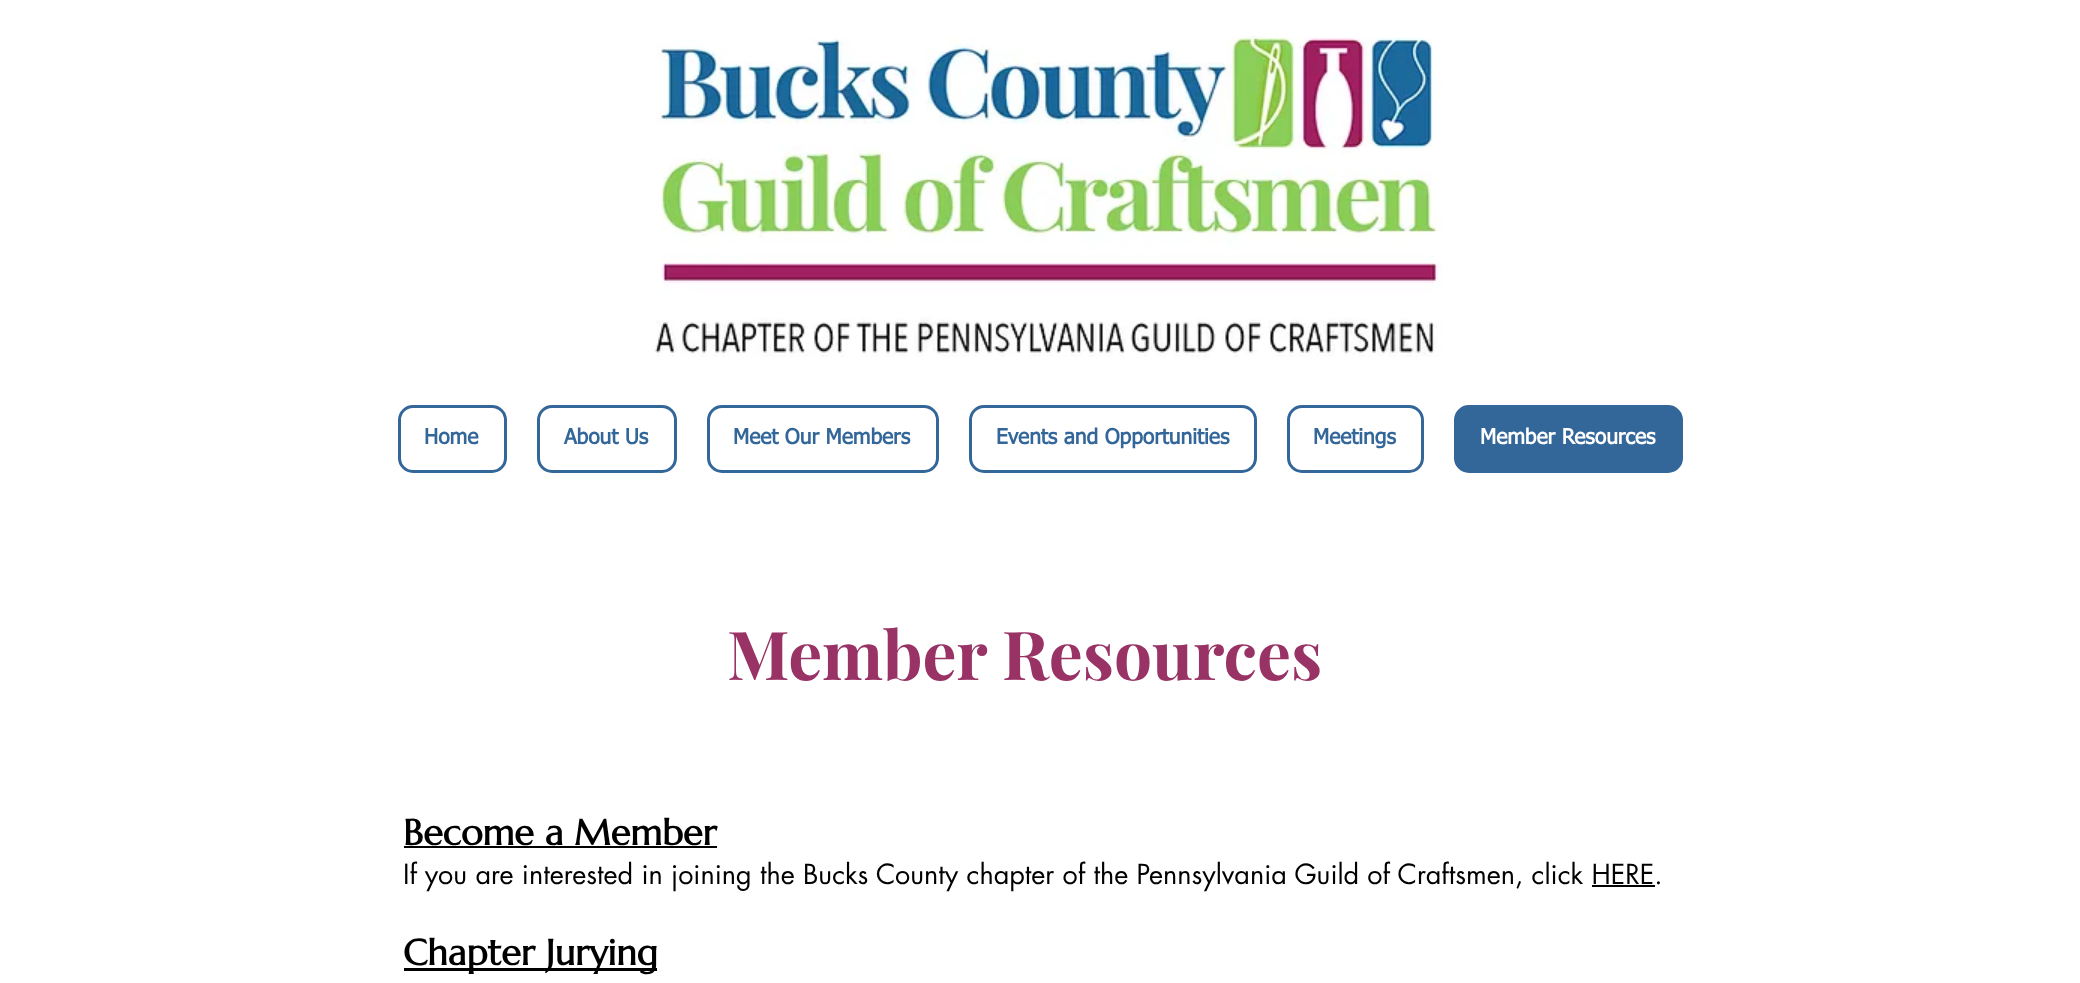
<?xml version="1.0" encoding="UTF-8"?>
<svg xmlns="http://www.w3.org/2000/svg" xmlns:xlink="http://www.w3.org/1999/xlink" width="2080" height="983">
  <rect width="100%" height="100%" fill="#ffffff" />
  <image x="653" y="36" width="790" height="321" xlink:href="image1.png" />
  <rect x="399.5" y="406.5" width="106" height="65" rx="13.5" fill="none" stroke="#336699" stroke-width="3" />
  <rect x="538.5" y="406.5" width="137" height="65" rx="13.5" fill="none" stroke="#336699" stroke-width="3" />
  <rect x="708.5" y="406.5" width="229" height="65" rx="13.5" fill="none" stroke="#336699" stroke-width="3" />
  <rect x="970.5" y="406.5" width="285" height="65" rx="13.5" fill="none" stroke="#336699" stroke-width="3" />
  <rect x="1288.5" y="406.5" width="134" height="65" rx="13.5" fill="none" stroke="#336699" stroke-width="3" />
  <rect x="1455.5" y="406.5" width="226" height="65" rx="13.5" fill="#336699" stroke="#336699" stroke-width="3" />
  <rect x="404" y="846" width="313" height="2" fill="#000000" />
  <rect x="1592" y="885" width="63" height="2" fill="#000000" />
  <rect x="404" y="968" width="253" height="3" fill="#000000" />
  <text x="424" y="444" style="font-family: tahoma; font-size: 21px; font-weight: bold; fill: #336699">Home</text>
  <text x="564" y="444" style="font-family: tahoma; font-size: 21px; font-weight: bold; fill: #336699">About Us</text>
  <text x="733" y="444" style="font-family: tahoma; font-size: 21px; font-weight: bold; fill: #336699">Meet Our Members</text>
  <text x="996" y="444" style="font-family: tahoma; font-size: 21px; font-weight: bold; fill: #336699">Events and Opportunities</text>
  <text x="1313" y="444" style="font-family: tahoma; font-size: 21px; font-weight: bold; fill: #336699">Meetings</text>
  <text x="1480" y="444" style="font-family: tahoma; font-size: 21px; font-weight: bold; fill: #ffffff">Member Resources</text>
  <text x="727" y="680" style="font-family: Playfair Display; font-size: 67.5px; font-weight: bold; fill: #993366">Member Resources</text>
  <text x="403" y="845" style="font-family: Marcellus; font-size: 36px; font-weight: bold; fill: #000000">Become a Member</text>
  <text x="403" y="884" style="font-family: futura; font-size: 27px; fill: #000000">If you are interested in joining the Bucks County chapter of the Pennsylvania Guild of Craftsmen, click HERE.</text>
  <text x="403" y="965" style="font-family: Marcellus; font-size: 36px; font-weight: bold; fill: #000000">Chapter Jurying</text>
</svg>
